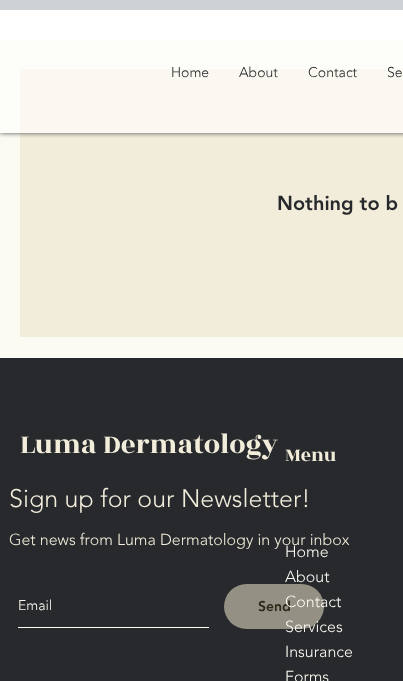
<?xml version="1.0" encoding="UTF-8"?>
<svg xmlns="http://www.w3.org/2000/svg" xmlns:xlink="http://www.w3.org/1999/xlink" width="403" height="681">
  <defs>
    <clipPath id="clip1"><rect x="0" y="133" width="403" height="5" /></clipPath>
  </defs>
  <rect width="100%" height="100%" fill="#fbfbf3" />
  <rect y="40" width="403" height="93" fill="#fdfdfa" />
  <rect x="20" y="133" width="383" height="204" fill="#f2eddb" />
  <rect x="20" y="69" width="383" height="64" fill="#faf8f1" />
  <g clip-path="url(#clip1)">
    <rect width="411" height="133" fill="#000000" fill-opacity="0.7" filter="blur(2.5px)" />
  </g>
  <rect width="403" height="10" fill="#cfd2d5" />
  <rect y="10" width="403" height="30" fill="#ffffff" />
  <rect y="358" width="403" height="323" fill="#27292c" />
  <rect x="18" y="627" width="191" height="1" fill="#fbfbf3" />
  <rect x="224" y="584" width="100" height="45" rx="22.5" fill="#949184" />
  <text x="171" y="77" style="font-family: 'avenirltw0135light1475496'; font-size: 14px; font-weight: 300; fill: #27292c">Home</text>
  <text x="239" y="77" style="font-family: 'avenirltw0135light1475496'; font-size: 14px; font-weight: 300; fill: #27292c">About</text>
  <text x="308" y="77" style="font-family: 'avenirltw0135light1475496'; font-size: 14px; font-weight: 300; fill: #27292c">Contact</text>
  <text x="387" y="77" style="font-family: 'avenirltw0135light1475496'; font-size: 14px; font-weight: 300; fill: #27292c">Se</text>
  <text x="277" y="210" style="font-family: 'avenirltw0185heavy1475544'; font-size: 20px; font-weight: 900; fill: #27292c">Nothing to b</text>
  <text x="20" y="453" style="font-family: Rozha One; font-size: 29px; fill: #f2eddb">Luma Dermatology</text>
  <text x="9" y="507" style="font-family: 'avenirltw0135light1475496'; font-size: 25px; font-weight: 300; fill: #f2eddb">Sign up for our Newsletter!</text>
  <text x="9" y="545" style="font-family: 'avenirltw0135light1475496'; font-size: 16px; font-weight: 300; fill: #f2eddb">Get news from Luma Dermatology in your inbox</text>
  <text x="18" y="610" style="font-family: 'avenirltw0135light1475496'; font-size: 14px; font-weight: 300; fill: #fbfbf3">Email</text>
  <text x="258" y="611" style="font-family: 'avenirltw0185heavy1475544'; font-size: 14px; font-weight: 900; fill: #2c2817">Send</text>
  <text x="285" y="461" style="font-family: Rozha One; font-size: 20px; fill: #f2eddb">Menu</text>
  <text x="285" y="557" style="font-family: 'avenirltw0135light1475496'; font-size: 16px; font-weight: 300; fill: #fbfbf3">Home</text>
  <text x="285" y="582" style="font-family: 'avenirltw0135light1475496'; font-size: 16px; font-weight: 300; fill: #fbfbf3">About</text>
  <text x="285" y="607" style="font-family: 'avenirltw0135light1475496'; font-size: 16px; font-weight: 300; fill: #fbfbf3">Contact</text>
  <text x="285" y="632" style="font-family: 'avenirltw0135light1475496'; font-size: 16px; font-weight: 300; fill: #fbfbf3">Services</text>
  <text x="285" y="657" style="font-family: 'avenirltw0135light1475496'; font-size: 16px; font-weight: 300; fill: #fbfbf3">Insurance</text>
  <text x="285" y="682" style="font-family: 'avenirltw0135light1475496'; font-size: 16px; font-weight: 300; fill: #fbfbf3">Forms</text>
</svg>
